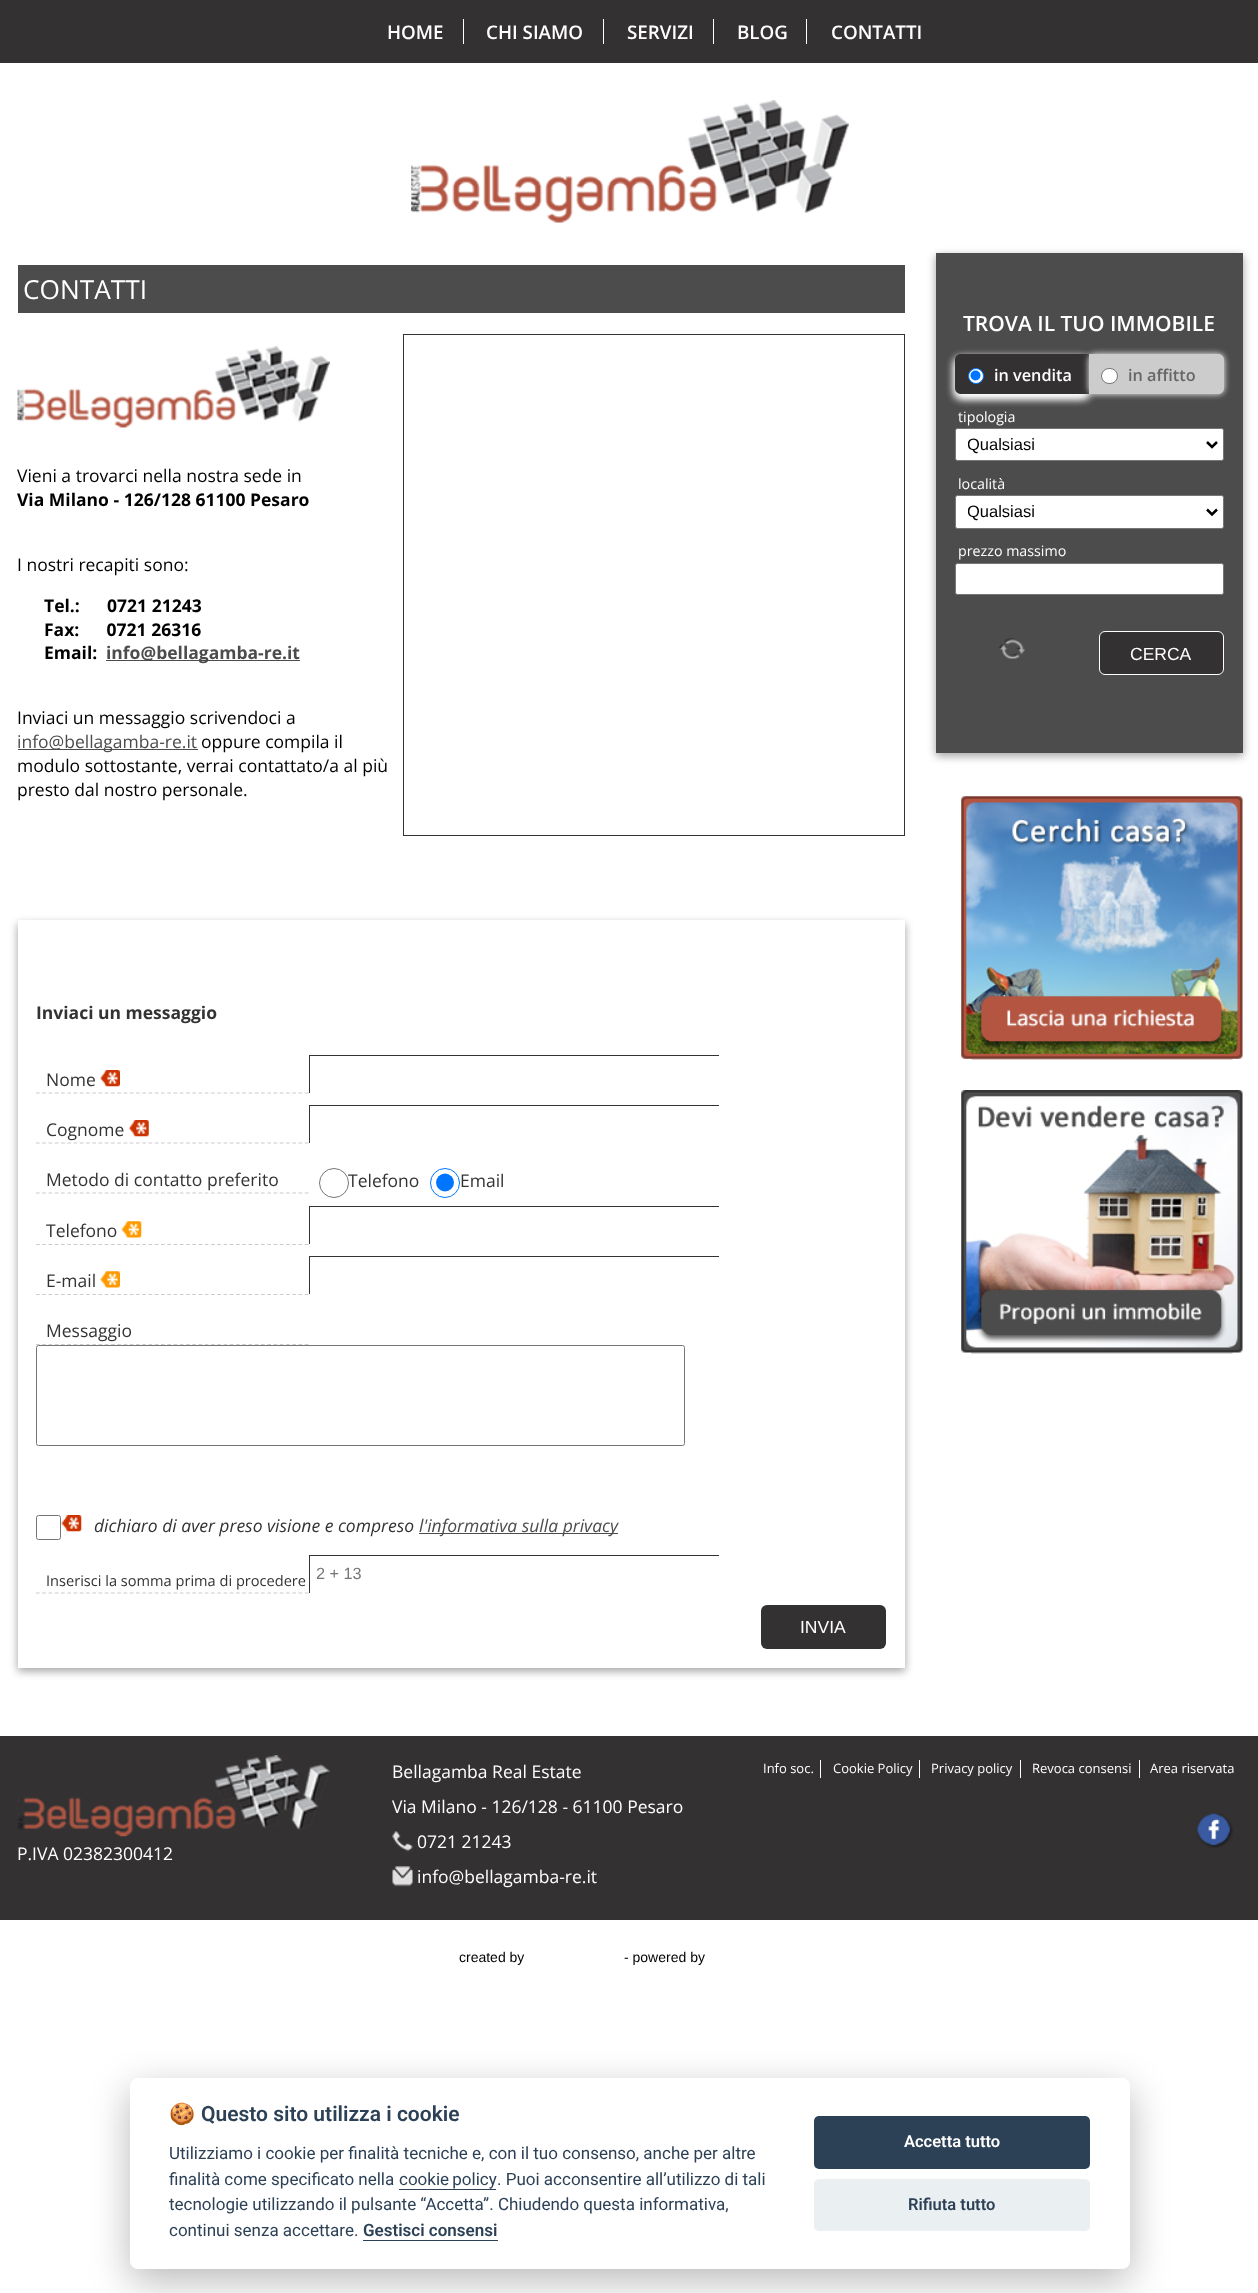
<?xml version="1.0" encoding="UTF-8"?>
<svg xmlns="http://www.w3.org/2000/svg" xmlns:xlink="http://www.w3.org/1999/xlink" width="1258" height="2293">
  <defs>
    <clipPath id="clip1"><rect x="968" y="434" width="228" height="21" /></clipPath>
    <clipPath id="clip2"><rect x="968" y="501" width="228" height="22" /></clipPath>
  </defs>
  <rect width="100%" height="100%" fill="#ffffff" />
  <rect width="1258" height="63" fill="#333132" />
  <rect x="463" y="19" width="1" height="25" fill="#ffffff" />
  <rect x="603" y="19" width="1" height="25" fill="#ffffff" />
  <rect x="713" y="19" width="1" height="25" fill="#ffffff" />
  <rect x="806" y="19" width="1" height="25" fill="#ffffff" />
  <image x="411" y="100" width="438" height="123" xlink:href="image1.png" />
  <rect x="18" y="265" width="887" height="48" fill="#4c4c4c" />
  <image x="17" y="346" width="313" height="82" xlink:href="image2.png" />
  <rect x="106" y="660" width="194" height="1" fill="#4c4c4c" />
  <rect x="18" y="749" width="180" height="1" fill="#4c4c4c" />
  <rect x="403.5" y="334.5" width="501" height="501" fill="none" stroke="#333333" />
  <rect x="18" y="924" width="887" height="747" fill="#000000" fill-opacity="0.23" filter="blur(4px)" />
  <rect x="18" y="924" width="887" height="747" fill="#000000" fill-opacity="0.16" filter="blur(4px)" />
  <rect x="18" y="920" width="887" height="748" fill="#ffffff" />
  <path d="M 36 1093 h 273" fill="none" stroke="#cccccc" stroke-width="1.2" stroke-dasharray="3.75 2.5" />
  <image x="100" y="1070" width="20" height="17" xlink:href="image3.png" />
  <rect x="309" y="1055" width="411" height="1" fill="#333333" />
  <rect x="719" y="1055" width="1" height="1" fill="#ffffff" />
  <rect x="309" y="1055" width="1" height="38" fill="#333333" />
  <path d="M 36 1143 h 273" fill="none" stroke="#cccccc" stroke-width="1.2" stroke-dasharray="3.75 2.5" />
  <image x="128" y="1120" width="21" height="17" xlink:href="image4.png" />
  <rect x="309" y="1105" width="411" height="1" fill="#333333" />
  <rect x="719" y="1105" width="1" height="1" fill="#ffffff" />
  <rect x="309" y="1105" width="1" height="38" fill="#333333" />
  <path d="M 36 1193 h 273" fill="none" stroke="#cccccc" stroke-width="1.2" stroke-dasharray="3.75 2.5" />
  <circle cx="334" cy="1183" r="14.5" fill="none" stroke="#767676" />
  <circle cx="445" cy="1183" r="14.5" fill="none" stroke="#0075ff" />
  <circle cx="445" cy="1182.5" r="9" fill="#0075ff" />
  <path d="M 36 1244.5 h 273" fill="none" stroke="#cccccc" stroke-width="1.2" stroke-dasharray="3.75 2.5" />
  <image x="121" y="1221" width="21" height="17" xlink:href="image5.png" />
  <rect x="309" y="1206" width="411" height="1" fill="#333333" />
  <rect x="719" y="1206" width="1" height="1" fill="#ffffff" />
  <rect x="309" y="1206" width="1" height="38" fill="#333333" />
  <path d="M 36 1294.5 h 273" fill="none" stroke="#cccccc" stroke-width="1.2" stroke-dasharray="3.75 2.5" />
  <image x="100" y="1271" width="20" height="17" xlink:href="image6.png" />
  <rect x="309" y="1256" width="411" height="1" fill="#333333" />
  <rect x="719" y="1256" width="1" height="1" fill="#ffffff" />
  <rect x="309" y="1256" width="1" height="38" fill="#333333" />
  <path d="M 36 1344.5 h 273" fill="none" stroke="#cccccc" stroke-width="1.2" stroke-dasharray="3.75 2.5" />
  <rect x="36.5" y="1345.5" width="648" height="100" rx="2" fill="#ffffff" stroke="#767676" />
  <rect x="36.5" y="1515.5" width="24" height="24" rx="2" fill="none" stroke="#767676" />
  <image x="61" y="1515" width="21" height="17" xlink:href="image7.png" />
  <rect x="419" y="1533" width="199" height="1" fill="#4c4c4c" />
  <path d="M 36 1593 h 273" fill="none" stroke="#cccccc" stroke-width="1.2" stroke-dasharray="3.75 2.5" />
  <rect x="309" y="1555" width="411" height="1" fill="#333333" />
  <rect x="719" y="1555" width="1" height="1" fill="#ffffff" />
  <rect x="309" y="1555" width="1" height="38" fill="#333333" />
  <rect x="761" y="1605" width="125" height="44" rx="6" fill="#333132" />
  <rect x="936" y="256" width="307" height="500" fill="#000000" fill-opacity="0.23" filter="blur(4px)" />
  <rect x="936" y="256" width="307" height="500" fill="#000000" fill-opacity="0.16" filter="blur(4px)" />
  <rect x="936" y="253" width="307" height="500" fill="#4c4c4c" />
  <rect x="955" y="358" width="134" height="40" rx="6" fill="#ffffff" filter="blur(4px)" />
  <rect x="955" y="358" width="134" height="40" rx="6" fill="#ffffff" filter="blur(4px)" />
  <path d="M 961 354 h 128 v 40 h -128 c -3.5 0 -6 -2.5 -6 -6 v -28 c 0 -3.5 2.5 -6 6 -6 z" fill="#333132" />
  <circle cx="976" cy="376" r="7.5" fill="#ffffff" stroke="#0075ff" />
  <circle cx="975.5" cy="375.5" r="5" fill="#0075ff" />
  <rect x="1089" y="354" width="135" height="40" rx="6" fill="#ffffff" filter="blur(3px)" />
  <path d="M 1089 354 h 129 c 3.5 0 6 2.5 6 6 v 28 c 0 3.5 -2.5 6 -6 6 h -129 z" fill="#cccccc" />
  <rect x="1101.5" y="368.5" width="16" height="15" rx="7.5" fill="#ffffff" stroke="#767676" />
  <rect x="955.5" y="428.5" width="268" height="32" rx="2" fill="#ffffff" stroke="#767676" />
  <path d="M 1207 442 l 5 5 l 5 -5" fill="none" stroke="#000000" stroke-width="2.5" />
  <rect x="955.5" y="495.5" width="268" height="33" rx="2" fill="#ffffff" stroke="#767676" />
  <path d="M 1207 509.5 l 5 5 l 5 -5" fill="none" stroke="#000000" stroke-width="2.5" />
  <rect x="955.5" y="563.5" width="268" height="31" rx="2" fill="#ffffff" stroke="#767676" />
  <image x="998" y="638" width="28" height="21" xlink:href="image8.png" />
  <rect x="1099.5" y="631.5" width="124" height="43" rx="5.5" fill="#333132" stroke="#ffffff" />
  <image x="961" y="796" width="282" height="264" xlink:href="image9.png" />
  <image x="961" y="1090" width="282" height="264" xlink:href="image10.png" />
  <rect y="1736" width="1258" height="184" fill="#333132" />
  <image x="17" y="1755" width="313" height="82" xlink:href="image11.png" />
  <image x="392" y="1831" width="21" height="21" xlink:href="image12.png" />
  <image x="392" y="1866" width="21" height="21" xlink:href="image13.png" />
  <rect x="820" y="1760" width="1" height="18" fill="#ffffff" />
  <rect x="919" y="1760" width="1" height="18" fill="#ffffff" />
  <rect x="1020" y="1760" width="1" height="18" fill="#ffffff" />
  <rect x="1139" y="1760" width="1" height="18" fill="#ffffff" />
  <image x="1197" y="1813" width="36" height="35" xlink:href="image14.png" />
  <rect x="130" y="2090" width="1000" height="191" rx="8" fill="#020203" fill-opacity="0.28" filter="blur(19px)" />
  <rect x="130" y="2078" width="1000" height="191" rx="8" fill="#ffffff" />
  <rect x="399" y="2189" width="97" height="1" fill="#2d4156" />
  <rect x="363" y="2240" width="135" height="1" fill="#2d4156" />
  <rect x="814" y="2116" width="276" height="53" rx="5" fill="#2d4156" />
  <rect x="814" y="2179" width="276" height="52" rx="5" fill="#eaeff2" />
  <text x="387" y="39" style="font-family: Open Sans; font-size: 18.75px; font-weight: 600; fill: #ffffff">HOME</text>
  <text x="486" y="39" style="font-family: Open Sans; font-size: 18.75px; font-weight: 600; fill: #ffffff">CHI SIAMO</text>
  <text x="627" y="39" style="font-family: Open Sans; font-size: 18.75px; font-weight: 600; fill: #ffffff">SERVIZI</text>
  <text x="737" y="39" style="font-family: Open Sans; font-size: 18.75px; font-weight: 600; fill: #ffffff">BLOG</text>
  <text x="831" y="39" style="font-family: Open Sans; font-size: 18.75px; font-weight: 600; fill: #ffffff">CONTATTI</text>
  <text x="23" y="299" style="font-family: Open Sans; font-size: 26.25px; fill: #ffffff">CONTATTI</text>
  <text x="17" y="482" style="font-family: Open Sans; font-size: 17.5px; fill: #000000">Vieni a trovarci nella nostra sede in</text>
  <text x="17" y="506" style="font-family: Open Sans; font-size: 17.5px; font-weight: bold; fill: #000000">Via Milano - 126/128 61100 Pesaro</text>
  <text x="17" y="571" style="font-family: Open Sans; font-size: 17.5px; fill: #000000">I nostri recapiti sono:</text>
  <text x="44" y="612" style="font-family: Open Sans; font-size: 17.5px; font-weight: bold; fill: #000000" xml:space="preserve">Tel.:      0721 21243</text>
  <text x="44" y="636" style="font-family: Open Sans; font-size: 17.5px; font-weight: bold; fill: #000000" xml:space="preserve">Fax:      0721 26316</text>
  <text x="44" y="659" style="font-family: Open Sans; font-size: 17.5px; font-weight: bold; fill: #000000">Email:</text>
  <text x="106" y="659" style="font-family: Open Sans; font-size: 17.5px; font-weight: bold; fill: #4c4c4c">info@bellagamba-re.it</text>
  <text x="17" y="724" style="font-family: Open Sans; font-size: 17.5px; fill: #000000">Inviaci un messaggio scrivendoci a</text>
  <text x="17" y="748" style="font-family: Open Sans; font-size: 17.5px; fill: #4c4c4c">info@bellagamba-re.it</text>
  <text x="201" y="748" style="font-family: Open Sans; font-size: 17.5px; fill: #000000">oppure compila il</text>
  <text x="17" y="772" style="font-family: Open Sans; font-size: 17.5px; fill: #000000">modulo sottostante, verrai contattato/a al più</text>
  <text x="17" y="796" style="font-family: Open Sans; font-size: 17.5px; fill: #000000">presto dal nostro personale.</text>
  <text x="36" y="1019" style="font-family: Open Sans; font-size: 17.5px; font-weight: bold; fill: #333333">Inviaci un messaggio</text>
  <text x="46" y="1086" style="font-family: Open Sans; font-size: 17.5px; fill: #333333">Nome</text>
  <text x="46" y="1136" style="font-family: Open Sans; font-size: 17.5px; fill: #333333">Cognome</text>
  <text x="46" y="1186" style="font-family: Open Sans; font-size: 17.5px; fill: #333333">Metodo di contatto preferito</text>
  <text x="348" y="1187" style="font-family: Open Sans; font-size: 17.5px; fill: #333333">Telefono</text>
  <text x="460" y="1187" style="font-family: Open Sans; font-size: 17.5px; fill: #333333">Email</text>
  <text x="46" y="1237" style="font-family: Open Sans; font-size: 17.5px; fill: #333333">Telefono</text>
  <text x="46" y="1287" style="font-family: Open Sans; font-size: 17.5px; fill: #333333">E-mail</text>
  <text x="46" y="1337" style="font-family: Open Sans; font-size: 17.5px; fill: #333333">Messaggio</text>
  <text x="94" y="1532" style="font-family: Open Sans; font-size: 17.5px; font-style: italic; fill: #333333">dichiaro di aver preso visione e compreso</text>
  <text x="419" y="1532" style="font-family: Open Sans; font-size: 17.5px; font-style: italic; fill: #4c4c4c">l'informativa sulla privacy</text>
  <text x="46" y="1586" style="font-family: Open Sans; font-size: 14.6px; fill: #333333">Inserisci la somma prima di procedere</text>
  <text x="316" y="1579" style="font-family: Liberation Sans; font-size: 16.25px; fill: #757575">2 + 13</text>
  <text x="800" y="1633" style="font-family: Liberation Sans; font-size: 17.5px; fill: #ffffff">INVIA</text>
  <text x="963" y="331" style="font-family: Open Sans; font-size: 21px; font-weight: 600; fill: #ffffff">TROVA IL TUO IMMOBILE</text>
  <text x="994" y="381" style="font-family: Open Sans; font-size: 16.25px; font-weight: 600; fill: #ffffff">in vendita</text>
  <text x="1128" y="381" style="font-family: Open Sans; font-size: 16.25px; font-weight: 600; fill: #666666">in affitto</text>
  <text x="958" y="422" style="font-family: Open Sans; font-size: 14.25px; fill: #ffffff">tipologia</text>
  <g clip-path="url(#clip1)">
    <text x="967" y="450" style="font-family: Liberation Sans; font-size: 16.5px; fill: #000000">Qualsiasi</text>
  </g>
  <text x="958" y="489" style="font-family: Open Sans; font-size: 14.25px; fill: #ffffff">località</text>
  <g clip-path="url(#clip2)">
    <text x="967" y="517" style="font-family: Liberation Sans; font-size: 16.5px; fill: #000000">Qualsiasi</text>
  </g>
  <text x="958" y="556" style="font-family: Open Sans; font-size: 14.25px; fill: #ffffff">prezzo massimo</text>
  <text x="1130" y="660" style="font-family: Liberation Sans; font-size: 17.5px; fill: #ffffff">CERCA</text>
  <text x="17" y="1860" style="font-family: Open Sans; font-size: 17.5px; fill: #ffffff">P.IVA 02382300412</text>
  <text x="392" y="1778" style="font-family: Open Sans; font-size: 17.5px; fill: #ffffff">Bellagamba Real Estate</text>
  <text x="392" y="1813" style="font-family: Open Sans; font-size: 17.5px; fill: #ffffff">Via Milano - 126/128 - 61100 Pesaro</text>
  <text x="417" y="1848" style="font-family: Open Sans; font-size: 17.5px; fill: #ffffff">0721 21243</text>
  <text x="417" y="1883" style="font-family: Open Sans; font-size: 17.5px; fill: #ffffff">info@bellagamba-re.it</text>
  <text x="763" y="1773" style="font-family: Open Sans; font-size: 13px; fill: #ffffff">Info soc.</text>
  <text x="833" y="1773" style="font-family: Open Sans; font-size: 13px; fill: #ffffff">Cookie Policy</text>
  <text x="931" y="1773" style="font-family: Open Sans; font-size: 13px; fill: #ffffff">Privacy policy</text>
  <text x="1032" y="1773" style="font-family: Open Sans; font-size: 13px; fill: #ffffff">Revoca consensi</text>
  <text x="1150" y="1773" style="font-family: Open Sans; font-size: 13px; fill: #ffffff">Area riservata</text>
  <text x="459" y="1962" style="font-family: Liberation Sans; font-size: 14px; fill: #000000">created by</text>
  <text x="624" y="1962" style="font-family: Liberation Sans; font-size: 14px; fill: #000000">- powered by</text>
  <text x="169" y="2121" style="font-family: Noto Color Emoji; font-size: 21px; font-weight: bold; fill: #2d4156">🍪</text>
  <text x="201" y="2121" style="font-family: Roboto; font-size: 21px; font-weight: 600; fill: #2d4156">Questo sito utilizza i cookie</text>
  <text x="169" y="2159" style="font-family: Roboto; font-size: 17px; fill: #2d4156">Utilizziamo i cookie per finalità tecniche e, con il tuo consenso, anche per altre</text>
  <text x="169" y="2185" style="font-family: Roboto; font-size: 17px; fill: #2d4156">finalità come specificato nella</text>
  <text x="399" y="2185" word-spacing="-1" style="font-family: Roboto; font-size: 17px; fill: #2d4156">cookie policy</text>
  <text x="497" y="2185" style="font-family: Roboto; font-size: 17px; fill: #2d4156">. Puoi acconsentire all’utilizzo di tali</text>
  <text x="169" y="2210" style="font-family: Roboto; font-size: 17px; fill: #2d4156">tecnologie utilizzando il pulsante “Accetta”. Chiudendo questa informativa,</text>
  <text x="169" y="2236" style="font-family: Roboto; font-size: 17px; fill: #2d4156">continui senza accettare.</text>
  <text x="363" y="2236" style="font-family: Roboto; font-size: 17px; font-weight: 600; fill: #2d4156">Gestisci consensi</text>
  <text x="904" y="2147" style="font-family: Roboto; font-size: 16.5px; font-weight: 600; fill: #ffffff">Accetta tutto</text>
  <text x="908" y="2210" style="font-family: Roboto; font-size: 16.5px; font-weight: 600; fill: #2d4156">Rifiuta tutto</text>
</svg>
